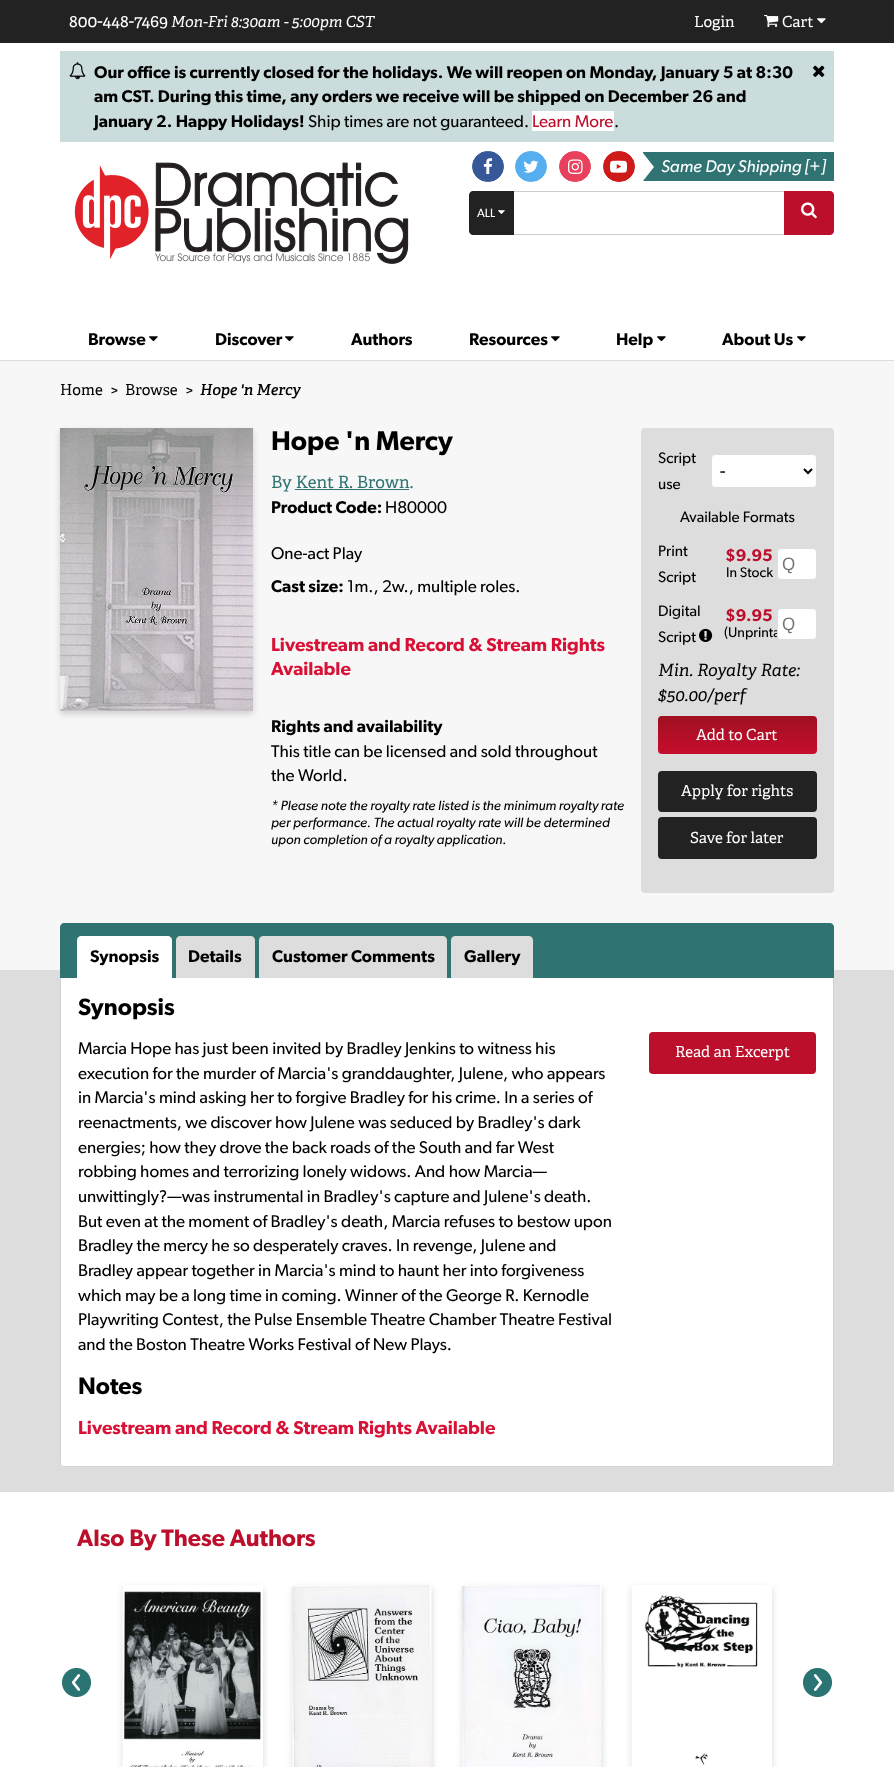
<?xml version="1.0" encoding="UTF-8"?>
<svg xmlns="http://www.w3.org/2000/svg" xmlns:xlink="http://www.w3.org/1999/xlink" width="894" height="1767">
  <defs>
    <linearGradient id="g1" gradientUnits="userSpaceOnUse" x1="738" y1="716" x2="738" y2="754"><stop offset="0" stop-color="#9f1021" /><stop offset="1" stop-color="#c70d2e" /></linearGradient>
    <clipPath id="clip1"><path d="M 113 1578 h 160 v 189 h -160 z m 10 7 h 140 v 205 h -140 z" clip-rule="evenodd" /></clipPath>
    <clipPath id="clip2"><path d="M 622 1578 h 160 v 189 h -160 z m 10 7 h 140 v 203 h -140 z" clip-rule="evenodd" /></clipPath>
  </defs>
  <rect width="100%" height="100%" fill="#ffffff" />
  <rect width="894" height="43" fill="#222222" />
  <image x="764" y="15" width="15" height="12" xlink:href="image1.png" />
  <image x="817" y="18" width="9" height="6" xlink:href="image2.png" />
  <rect x="60" y="51" width="774" height="91" fill="#cbdcdc" />
  <image x="69" y="62" width="17" height="18" xlink:href="image3.png" />
  <rect x="532" y="111" width="82" height="20" fill="#ffffff" />
  <image x="813" y="65" width="12" height="12" xlink:href="image4.png" />
  <image x="74" y="162" width="335" height="102" xlink:href="image5.png" />
  <rect x="472.5" y="151.5" width="31" height="30" rx="15" fill="#365898" stroke="#365898" />
  <image x="483" y="158" width="10" height="16" xlink:href="image6.png" />
  <rect x="515.5" y="151.5" width="31" height="30" rx="15" fill="#54aeef" stroke="#54aeef" />
  <image x="523" y="160" width="16" height="13" xlink:href="image7.png" />
  <rect x="559.5" y="151.5" width="31" height="30" rx="15" fill="#e8405d" stroke="#e8405d" />
  <image x="568" y="159" width="15" height="15" xlink:href="image8.png" />
  <rect x="603.5" y="151.5" width="31" height="30" rx="15" fill="#ce1a19" stroke="#ce1a19" />
  <image x="610" y="160" width="17" height="13" xlink:href="image9.png" />
  <rect x="643" y="152" width="191" height="29" fill="#2f7473" />
  <path d="M 643 181 v -28 l 11 14 z" fill="#ffffff" />
  <path d="M 473 191 h 41 v 44 h -41 c -2 0 -4 -2 -4 -4 v -36 c 0 -2 2 -4 4 -4 z" fill="#222222" />
  <image x="498" y="210" width="7" height="4" xlink:href="image10.png" />
  <rect x="514" y="191" width="270" height="1" fill="#cccccc" />
  <rect x="514" y="234" width="270" height="1" fill="#cccccc" />
  <path d="M 784 191 h 46 c 2 0 4 2 4 4 v 36 c 0 2 -2 4 -4 4 h -46 z" fill="#bc0f2c" />
  <image x="801" y="202" width="16" height="17" xlink:href="image11.png" />
  <image x="149" y="336" width="9" height="6" xlink:href="image12.png" />
  <image x="285" y="336" width="9" height="6" xlink:href="image12.png" />
  <image x="551" y="336" width="9" height="6" xlink:href="image12.png" />
  <image x="657" y="336" width="9" height="6" xlink:href="image12.png" />
  <image x="797" y="336" width="9" height="6" xlink:href="image12.png" />
  <rect y="361" width="894" height="609" fill="#f8f7f7" />
  <rect y="360" width="894" height="1" fill="#dddddd" />
  <rect x="60" y="431" width="193" height="283" fill="#000000" fill-opacity="0.16" filter="blur(3px)" />
  <image x="60" y="428" width="193" height="283" xlink:href="image13.png" />
  <rect x="295" y="489" width="114" height="1" fill="#2f7473" />
  <rect x="641" y="428" width="193" height="465" rx="4" fill="#dddddd" />
  <rect x="711.5" y="454.5" width="105" height="33" rx="3.5" fill="#ffffff" stroke="#dddddd" />
  <path d="M 804 469 l 4 4 l 4 -4" fill="none" stroke="#000000" stroke-width="2" />
  <rect x="777.5" y="548.5" width="39" height="31" rx="3.5" fill="#ffffff" stroke="#dddddd" />
  <image x="699" y="628" width="14" height="14" xlink:href="image14.png" />
  <rect x="658" y="716" width="159" height="38" rx="4" fill="url(#g1)" />
  <rect x="658" y="771" width="159" height="41" rx="4" fill="#222222" />
  <rect x="658" y="817" width="159" height="42" rx="4" fill="#222222" />
  <rect y="970" width="894" height="522" fill="#dddddd" />
  <path d="M 64 923 h 766 c 2 0 4 2 4 4 v 51 h -774 v -51 c 0 -2 2 -4 4 -4 z" fill="#2f7473" />
  <path d="M 81 936 h 87 c 2 0 4 2 4 4 v 38 h -95 v -38 c 0 -2 2 -4 4 -4 z" fill="#ffffff" />
  <path d="M 180 936 h 71 c 2 0 4 2 4 4 v 38 h -79 v -38 c 0 -2 2 -4 4 -4 z" fill="#dddddd" />
  <path d="M 263 936 h 180 c 2 0 4 2 4 4 v 38 h -188 v -38 c 0 -2 2 -4 4 -4 z" fill="#dddddd" />
  <path d="M 455 936 h 74 c 2 0 4 2 4 4 v 38 h -82 v -38 c 0 -2 2 -4 4 -4 z" fill="#dddddd" />
  <path d="M 60 978 h 774 v 485 c 0 2 -2 4 -4 4 h -766 c -2 0 -4 -2 -4 -4 z" fill="#ffffff" />
  <path d="M 60 978 h 774 v 485 c 0 2 -2 4 -4 4 h -766 c -2 0 -4 -2 -4 -4 z m 1 0 h 772 v 485 c 0 2 -1 3 -3 3 h -766 c -2 0 -3 -1 -3 -3 z" fill="#d1d1d1" fill-rule="evenodd" />
  <rect x="649" y="1032" width="167" height="42" rx="4" fill="#bc0f2c" />
  <image x="62" y="1668" width="29" height="29" xlink:href="image15.png" />
  <g clip-path="url(#clip1)">
    <rect x="123" y="1588" width="140" height="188" fill="#000000" fill-opacity="0.16" filter="blur(3px)" />
  </g>
  <image x="122" y="1589" width="141" height="178" xlink:href="image16.png" />
  <rect x="293" y="1588" width="139" height="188" fill="#000000" fill-opacity="0.16" filter="blur(3px)" />
  <image x="292" y="1585" width="140" height="182" xlink:href="image17.png" />
  <rect x="463" y="1588" width="139" height="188" fill="#000000" fill-opacity="0.16" filter="blur(3px)" />
  <image x="462" y="1585" width="140" height="182" xlink:href="image18.png" />
  <g clip-path="url(#clip2)">
    <rect x="632" y="1588" width="140" height="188" fill="#000000" fill-opacity="0.16" filter="blur(3px)" />
  </g>
  <image x="631" y="1589" width="141" height="178" xlink:href="image19.png" />
  <image x="803" y="1668" width="29" height="29" xlink:href="image20.png" />
  <text x="69" y="27" style="font-family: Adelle; font-size: 17px; fill: #ffffff">800-448-7469</text>
  <text x="171" y="27" style="font-family: Adelle; font-size: 15.25px; font-style: italic; fill: #ffffff">Mon-Fri 8:30am - 5:00pm CST</text>
  <text x="694" y="27" style="font-family: Adelle; font-size: 15.25px; fill: #ffffff">Login</text>
  <text x="782" y="27" style="font-family: Adelle; font-size: 15.25px; fill: #ffffff">Cart</text>
  <text x="94" y="78" style="font-family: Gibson; font-size: 17px; font-weight: 600; fill: #000000">Our office is currently closed for the holidays. We will reopen on Monday, January 5 at 8:30</text>
  <text x="94" y="102" style="font-family: Gibson; font-size: 17px; font-weight: 600; fill: #000000">am CST. During this time, any orders we receive will be shipped on December 26 and</text>
  <text x="94" y="127" style="font-family: Gibson; font-size: 17px; font-weight: 600; fill: #000000">January 2. Happy Holidays!</text>
  <text x="308" y="127" style="font-family: Gibson; font-size: 17px; fill: #000000">Ship times are not guaranteed.</text>
  <text x="532" y="127" style="font-family: Gibson; font-size: 17px; fill: #bc0f2c">Learn More</text>
  <text x="614" y="127" style="font-family: Gibson; font-size: 17px; fill: #000000">.</text>
  <text x="661" y="172" style="font-family: Gibson; font-size: 17px; font-style: italic; fill: #ffffff">Same Day Shipping [+]</text>
  <text x="477" y="217" style="font-family: Gibson; font-size: 12px; fill: #ffffff">ALL</text>
  <text x="88" y="345" style="font-family: Gibson; font-size: 17px; font-weight: 600; fill: #000000">Browse</text>
  <text x="215" y="345" style="font-family: Gibson; font-size: 17px; font-weight: 600; fill: #000000">Discover</text>
  <text x="351" y="345" style="font-family: Gibson; font-size: 17px; font-weight: 600; fill: #000000">Authors</text>
  <text x="469" y="345" style="font-family: Gibson; font-size: 17px; font-weight: 600; fill: #000000">Resources</text>
  <text x="616" y="345" style="font-family: Gibson; font-size: 17px; font-weight: 600; fill: #000000">Help</text>
  <text x="722" y="345" style="font-family: Gibson; font-size: 17px; font-weight: 600; fill: #000000">About Us</text>
  <text x="60" y="395" style="font-family: Adelle; font-size: 15.25px; fill: #000000">Home</text>
  <text x="110" y="395" style="font-family: Adelle; font-size: 15.25px; fill: #000000">&gt;</text>
  <text x="125" y="395" style="font-family: Adelle; font-size: 15.25px; fill: #000000">Browse</text>
  <text x="185" y="395" style="font-family: Adelle; font-size: 15.25px; fill: #000000">&gt;</text>
  <text x="200" y="395" style="font-family: Adelle; font-size: 15.25px; font-weight: 600; font-style: italic; fill: #000000">Hope 'n Mercy</text>
  <text x="271" y="450" style="font-family: Gibson; font-size: 27.25px; font-weight: 600; fill: #000000">Hope 'n Mercy</text>
  <text x="271" y="488" style="font-family: Adelle; font-size: 17px; fill: #2f7473">By Kent R. Brown.</text>
  <text x="271" y="513" style="font-family: Gibson; font-size: 17px; font-weight: 600; fill: #000000">Product Code:</text>
  <text x="385" y="513" style="font-family: Gibson; font-size: 17px; fill: #000000">H80000</text>
  <text x="271" y="559" style="font-family: Gibson; font-size: 17px; fill: #000000">One-act Play</text>
  <text x="271" y="592" style="font-family: Gibson; font-size: 17px; font-weight: 600; fill: #000000">Cast size:</text>
  <text x="347" y="592" style="font-family: Gibson; font-size: 17px; fill: #000000">1m., 2w., multiple roles.</text>
  <text x="271" y="651" style="font-family: Gibson; font-size: 18.7px; font-weight: 600; fill: #d81136">Livestream and Record &amp; Stream Rights</text>
  <text x="271" y="675" style="font-family: Gibson; font-size: 18.7px; font-weight: 600; fill: #d81136">Available</text>
  <text x="271" y="732" style="font-family: Gibson; font-size: 17px; font-weight: 600; fill: #000000">Rights and availability</text>
  <text x="271" y="757" style="font-family: Gibson; font-size: 17px; fill: #000000">This title can be licensed and sold throughout</text>
  <text x="271" y="781" style="font-family: Gibson; font-size: 17px; fill: #000000">the World.</text>
  <text x="271" y="810" style="font-family: Gibson; font-size: 13.6px; font-style: italic; fill: #000000">* Please note the royalty rate listed is the minimum royalty rate</text>
  <text x="271" y="827" style="font-family: Gibson; font-size: 13.6px; font-style: italic; fill: #000000">per performance. The actual royalty rate will be determined</text>
  <text x="271" y="844" style="font-family: Gibson; font-size: 13.6px; font-style: italic; fill: #000000">upon completion of a royalty application.</text>
  <text x="658" y="463" style="font-family: Gibson; font-size: 15.25px; fill: #000000">Script</text>
  <text x="658" y="489" style="font-family: Gibson; font-size: 15.25px; fill: #000000">use</text>
  <text x="720" y="477" style="font-family: Adelle; font-size: 17px; fill: #000000">-</text>
  <text x="680" y="522" style="font-family: Gibson; font-size: 15.25px; fill: #000000">Available Formats</text>
  <text x="658" y="556" style="font-family: Gibson; font-size: 15.25px; fill: #000000">Print</text>
  <text x="658" y="582" style="font-family: Gibson; font-size: 15.25px; fill: #000000">Script</text>
  <text x="725" y="561" style="font-family: Gibson; font-size: 17px; font-weight: 600; fill: #bc0f2c">$9.95</text>
  <text x="726" y="577" style="font-family: Gibson; font-size: 14px; fill: #000000">In Stock</text>
  <text x="782" y="570" style="font-family: Adelle; font-size: 17px; fill: #757575">Q</text>
  <text x="658" y="616" style="font-family: Gibson; font-size: 15.25px; fill: #000000">Digital</text>
  <text x="658" y="642" style="font-family: Gibson; font-size: 15.25px; fill: #000000">Script</text>
  <text x="725" y="621" style="font-family: Gibson; font-size: 17px; font-weight: 600; fill: #bc0f2c">$9.95</text>
  <text x="724" y="637" style="font-family: Gibson; font-size: 14px; fill: #000000">(Unprinta</text>
  <rect x="777.5" y="608.5" width="39" height="31" rx="3.5" fill="#ffffff" stroke="#dddddd" />
  <text x="782" y="630" style="font-family: Adelle; font-size: 17px; fill: #757575">Q</text>
  <text x="658" y="676" style="font-family: Adelle; font-size: 17px; font-style: italic; fill: #000000">Min. Royalty Rate:</text>
  <text x="658" y="701" style="font-family: Adelle; font-size: 17px; font-style: italic; fill: #000000">$50.00/perf</text>
  <text x="696" y="740" style="font-family: Adelle; font-size: 15.25px; fill: #ffffff">Add to Cart</text>
  <text x="681" y="796" style="font-family: Adelle; font-size: 15.25px; fill: #ffffff">Apply for rights</text>
  <text x="690" y="843" style="font-family: Adelle; font-size: 15.25px; fill: #ffffff">Save for later</text>
  <text x="90" y="962" style="font-family: Gibson; font-size: 17px; font-weight: 600; fill: #000000">Synopsis</text>
  <text x="188" y="962" style="font-family: Gibson; font-size: 17px; font-weight: 600; fill: #000000">Details</text>
  <text x="272" y="962" style="font-family: Gibson; font-size: 17px; font-weight: 600; fill: #000000">Customer Comments</text>
  <text x="464" y="962" style="font-family: Gibson; font-size: 17px; font-weight: 600; fill: #000000">Gallery</text>
  <text x="78" y="1015" style="font-family: Gibson; font-size: 23.75px; font-weight: 600; fill: #000000">Synopsis</text>
  <text x="78" y="1054" style="font-family: Gibson; font-size: 17px; fill: #000000">Marcia Hope has just been invited by Bradley Jenkins to witness his</text>
  <text x="78" y="1079" style="font-family: Gibson; font-size: 17px; fill: #000000">execution for the murder of Marcia's granddaughter, Julene, who appears</text>
  <text x="78" y="1103" style="font-family: Gibson; font-size: 17px; fill: #000000">in Marcia's mind asking her to forgive Bradley for his crime. In a series of</text>
  <text x="78" y="1128" style="font-family: Gibson; font-size: 17px; fill: #000000">reenactments, we discover how Julene was seduced by Bradley's dark</text>
  <text x="78" y="1153" style="font-family: Gibson; font-size: 17px; fill: #000000">energies; how they drove the back roads of the South and far West</text>
  <text x="78" y="1177" style="font-family: Gibson; font-size: 17px; fill: #000000">robbing homes and terrorizing lonely widows. And how Marcia—</text>
  <text x="78" y="1202" style="font-family: Gibson; font-size: 17px; fill: #000000">unwittingly?—was instrumental in Bradley's capture and Julene's death.</text>
  <text x="78" y="1227" style="font-family: Gibson; font-size: 17px; fill: #000000">But even at the moment of Bradley's death, Marcia refuses to bestow upon</text>
  <text x="78" y="1251" style="font-family: Gibson; font-size: 17px; fill: #000000">Bradley the mercy he so desperately craves. In revenge, Julene and</text>
  <text x="78" y="1276" style="font-family: Gibson; font-size: 17px; fill: #000000">Bradley appear together in Marcia's mind to haunt her into forgiveness</text>
  <text x="78" y="1301" style="font-family: Gibson; font-size: 17px; fill: #000000">which may be a long time in coming. Winner of the George R. Kernodle</text>
  <text x="78" y="1325" style="font-family: Gibson; font-size: 17px; fill: #000000">Playwriting Contest, the Pulse Ensemble Theatre Chamber Theatre Festival</text>
  <text x="78" y="1350" style="font-family: Gibson; font-size: 17px; fill: #000000">and the Boston Theatre Works Festival of New Plays.</text>
  <text x="78" y="1394" style="font-family: Gibson; font-size: 23.75px; font-weight: 600; fill: #000000">Notes</text>
  <text x="78" y="1434" style="font-family: Gibson; font-size: 18.7px; font-weight: 600; fill: #d81136">Livestream and Record &amp; Stream Rights Available</text>
  <text x="675" y="1057" style="font-family: Adelle; font-size: 15.25px; fill: #ffffff">Read an Excerpt</text>
  <text x="77" y="1546" style="font-family: Gibson; font-size: 23.75px; font-weight: 600; fill: #bc0f2c">Also By These Authors</text>
</svg>
